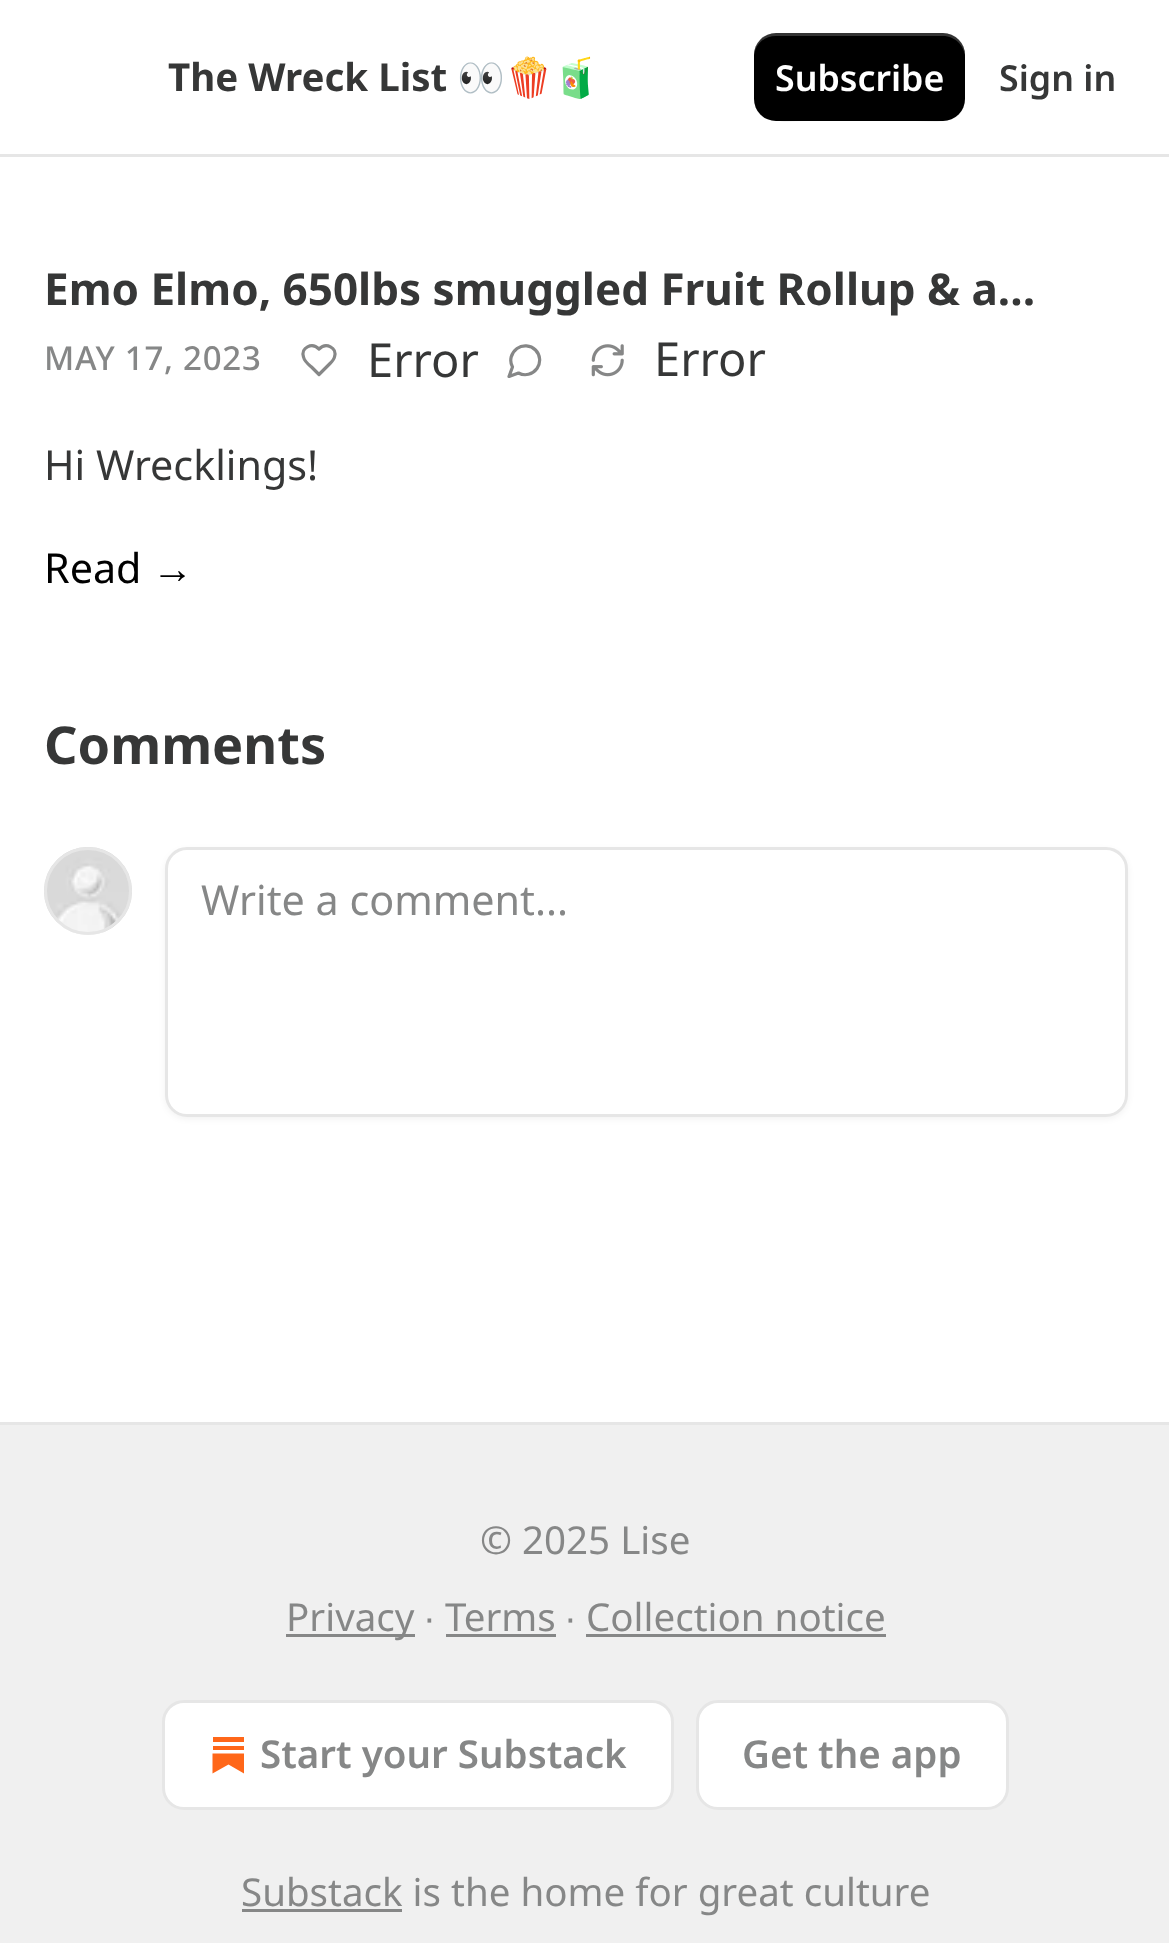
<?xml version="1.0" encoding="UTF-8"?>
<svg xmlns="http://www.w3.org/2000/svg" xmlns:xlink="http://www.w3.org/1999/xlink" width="1169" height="1943">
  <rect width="100%" height="100%" fill="#ffffff" />
  <rect y="154" width="1169" height="3" fill="#e6e6e6" />
  <rect x="754" y="33" width="211" height="88" rx="22" fill="#000000" />
  <path d="M 754 96 c 0 31 27 25 50 25 h 111 c 23 0 50 6 50 -25 c 0 12 -10 22 -22 22 h -167 c -13 0 -22 -10 -22 -22 z" fill="#000000" fill-opacity="0.1" />
  <path d="M 776 36 h 167 c 12 0 22 10 22 22 c 0 -31 -27 -25 -50 -25 h -111 c -23 0 -50 -6 -50 25 c 0 -12 9 -22 22 -22 z" fill="#ffffff" fill-opacity="0.2" />
  <path d="M 330 363.5 c 2 -2 4 -4 4.5 -6.5 c 3 -9.5 -8.5 -15 -15.5 -8 c -7 -7 -18.5 -1.5 -15.5 8 c 1 4.5 5 7.5 8 10 l 7.5 7.5 z" fill="none" stroke="#868787" stroke-width="3.2" stroke-linecap="round" stroke-linejoin="round" />
  <path d="M 518.5 373 c 6.5 3.5 14 1.5 18.5 -4.5 c 4 -5.5 3.5 -13.5 -1.5 -18.5 c -5 -5 -13 -5.5 -18.5 -1.5 c -6 4.5 -8 12 -4.5 18.5 l -3.5 9.5 z" fill="none" stroke="#868787" stroke-width="3.2" stroke-linecap="round" stroke-linejoin="round" />
  <image x="591" y="344" width="33" height="33" xlink:href="image1.png" />
  <circle cx="88" cy="891" r="42.5" fill="none" stroke="#e6e6e6" stroke-width="3" />
  <image x="44" y="847" width="88" height="88" xlink:href="image2.png" />
  <circle cx="88" cy="891" r="42.5" fill="none" stroke="#e6e6e6" stroke-width="3" />
  <rect x="165" y="850" width="963" height="269" rx="22" fill="#000000" fill-opacity="0.05" filter="blur(3px)" />
  <rect x="166.5" y="848.5" width="960" height="267" rx="20.5" fill="#ffffff" stroke="#e6e6e6" stroke-width="3" />
  <rect y="1425" width="1169" height="518" fill="#f0f0f0" />
  <rect y="1422" width="1169" height="3" fill="#e6e6e6" />
  <rect x="286" y="1634" width="129" height="3" fill="#868787" />
  <rect x="446" y="1634" width="110" height="3" fill="#868787" />
  <rect x="586" y="1634" width="300" height="3" fill="#868787" />
  <rect x="163.5" y="1701.5" width="509" height="107" rx="20.5" fill="#ffffff" stroke="#e6e6e6" stroke-width="3" />
  <rect x="213" y="1746" width="31" height="4" fill="#ff6719" />
  <path d="M 212.5 1753.5 v 20 l 16 -9 l 15.5 9 v -20 z" fill="#ff6719" />
  <rect x="213" y="1737" width="31" height="5" fill="#ff6719" />
  <rect x="697.5" y="1701.5" width="310" height="107" rx="20.5" fill="#ffffff" stroke="#e6e6e6" stroke-width="3" />
  <rect x="242" y="1909" width="160" height="3" fill="#868787" />
  <text x="168" y="91" style="font-family: Noto Sans; font-size: 38.5px; font-weight: bold; fill: #363737">The Wreck List</text>
  <text x="457" y="91" style="font-family: Noto Color Emoji; font-size: 38.5px; font-weight: bold; fill: #363737">👀🍿🧃</text>
  <text x="775" y="91" style="font-family: Noto Sans; font-size: 35.75px; font-weight: 600; fill: #ffffff">Subscribe</text>
  <text x="999" y="91" style="font-family: Noto Sans; font-size: 35.75px; font-weight: 600; fill: #363737">Sign in</text>
  <text x="44" y="305" style="font-family: Noto Sans; font-size: 44px; font-weight: bold; fill: #363737">Emo Elmo, 650lbs smuggled Fruit Rollup &amp; a…</text>
  <text x="44" y="370" style="font-family: Noto Sans; font-size: 33px; font-weight: 500; letter-spacing: 0.75px; fill: #868787">MAY 17, 2023</text>
  <text x="367" y="377" style="font-family: Noto Sans; font-size: 47px; fill: #363737">Error</text>
  <text x="654" y="376" style="font-family: Noto Sans; font-size: 47px; fill: #363737">Error</text>
  <text x="44" y="480" style="font-family: Noto Sans; font-size: 41.25px; fill: #363737">Hi Wrecklings!</text>
  <text x="44" y="583" style="font-family: Noto Sans; font-size: 41.25px; fill: #000000">Read</text>
  <text x="152" y="583" style="font-family: Liberation Sans; font-size: 41.25px; fill: #000000">→</text>
  <text x="44" y="764" style="font-family: Noto Sans; font-size: 52.25px; font-weight: bold; fill: #363737">Comments</text>
  <text x="201" y="915" style="font-family: Noto Sans; font-size: 41.25px; fill: #868787">Write a comment...</text>
  <text x="480" y="1554" style="font-family: Noto Sans; font-size: 38.5px; fill: #868787">© 2025 Lise</text>
  <text x="286" y="1631" style="font-family: Noto Sans; font-size: 38.5px; fill: #868787">Privacy</text>
  <text x="424" y="1631" style="font-family: Liberation Sans; font-size: 38.5px; fill: #868787">∙</text>
  <text x="445" y="1631" style="font-family: Noto Sans; font-size: 38.5px; fill: #868787">Terms</text>
  <text x="565" y="1631" style="font-family: Liberation Sans; font-size: 38.5px; fill: #868787">∙</text>
  <text x="586" y="1631" style="font-family: Noto Sans; font-size: 38.5px; fill: #868787">Collection notice</text>
  <text x="260" y="1768" style="font-family: Noto Sans; font-size: 38.5px; font-weight: 600; fill: #868787">Start your Substack</text>
  <text x="742" y="1768" style="font-family: Noto Sans; font-size: 38.5px; font-weight: 600; fill: #868787">Get the app</text>
  <text x="241" y="1906" style="font-family: Noto Sans; font-size: 38.5px; fill: #868787">Substack is the home for great culture</text>
</svg>
